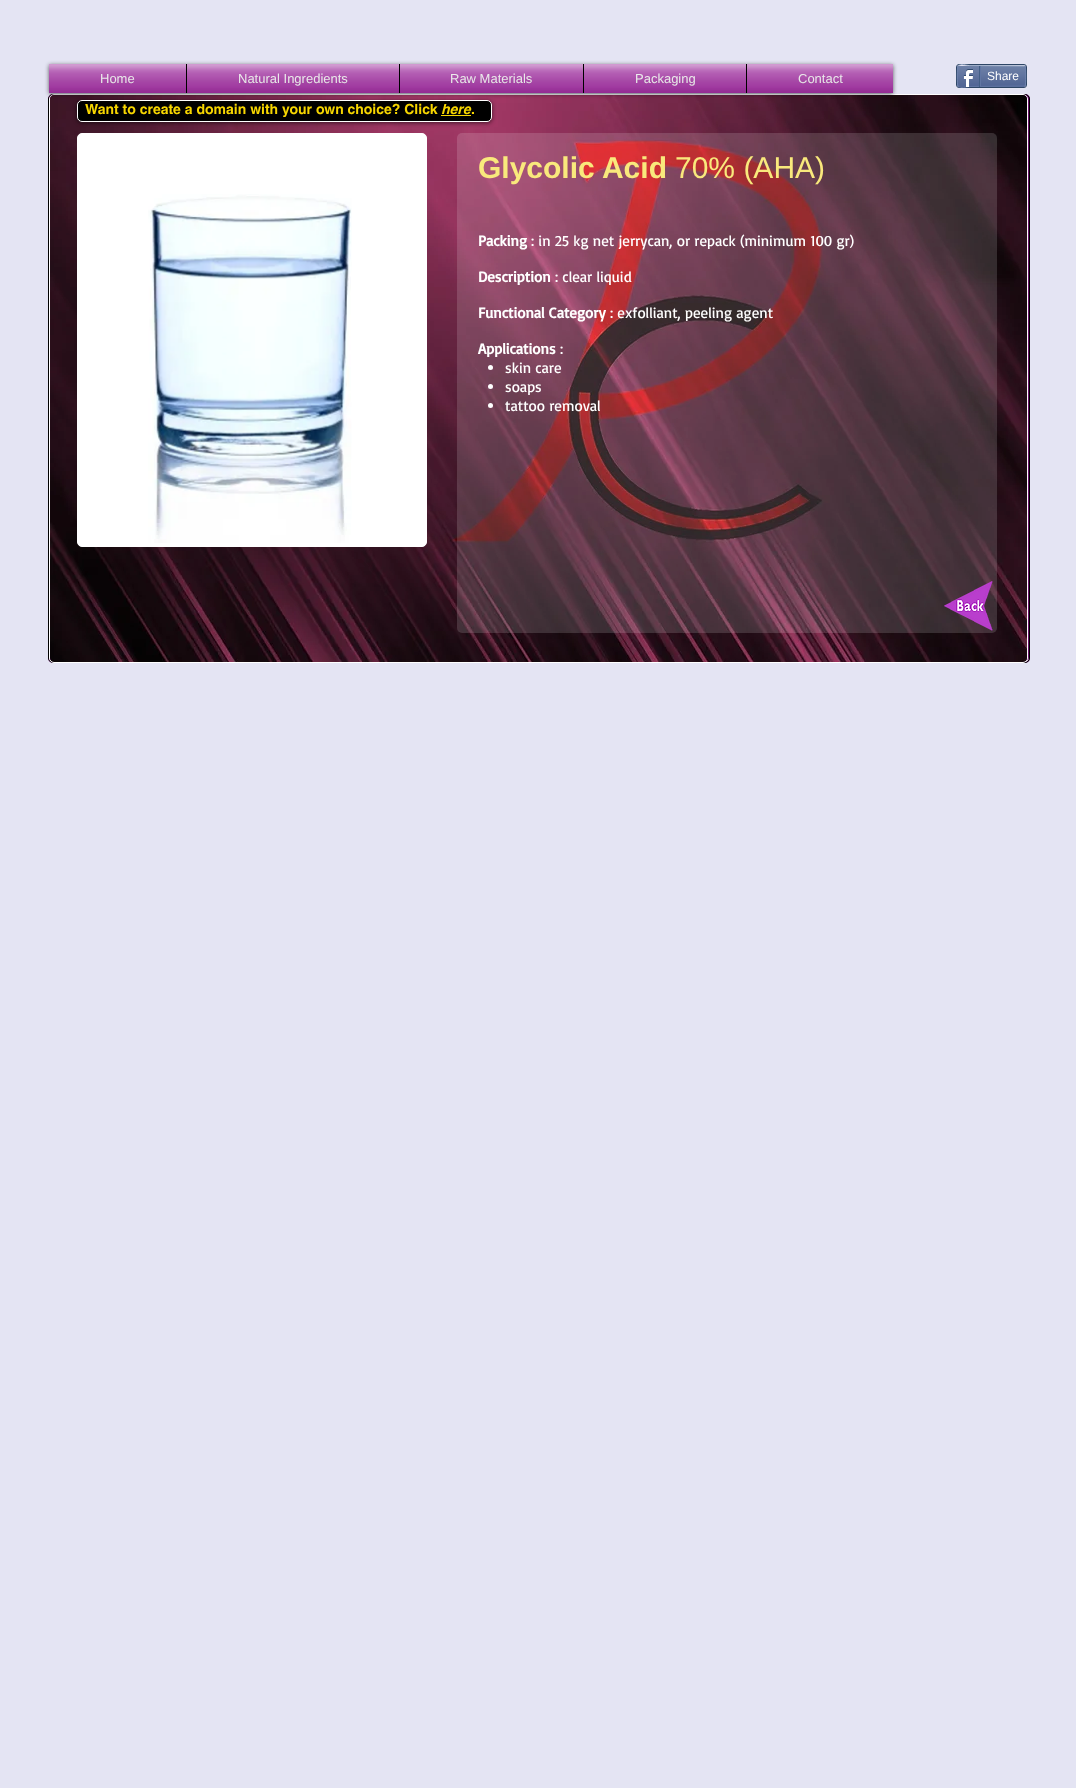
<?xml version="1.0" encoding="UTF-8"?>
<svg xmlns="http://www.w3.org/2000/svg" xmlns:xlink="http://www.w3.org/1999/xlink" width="1076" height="1788">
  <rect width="100%" height="100%" fill="#e4e4f3" />
  <rect x="48" y="94" width="982" height="569" rx="5" fill="#6c116c" />
  <path d="M 49 657 c 0 3 1 5 4 5 h 972 c 3 0 4 -2 4 -5 c 0 2 -2 4 -4 4 h -972 c -2 0 -4 -2 -4 -4 z" fill="#dac4da" />
  <rect x="48.5" y="94.5" width="981" height="568" rx="4.5" fill="none" stroke="#000000" />
  <rect x="49.5" y="94.5" width="978" height="568" rx="4.5" fill="none" stroke="#ffffff" />
  <image x="50" y="95" width="977" height="567" xlink:href="image13.png" />
  <rect x="77" y="101" width="415" height="22" rx="5" fill="#000000" fill-opacity="0.6" filter="blur(2px)" />
  <rect x="77.5" y="100.5" width="414" height="21" rx="4.5" fill="#000000" stroke="#ffffff" />
  <rect x="49" y="65" width="844" height="29" fill="#000000" fill-opacity="0.6" filter="blur(2px)" />
  <rect x="49" y="64" width="137" height="29" fill="#a31aa3" />
  <rect x="187" y="64" width="212" height="29" fill="#a31aa3" />
  <rect x="186" y="64" width="1" height="29" fill="#000000" />
  <rect x="400" y="64" width="183" height="29" fill="#a31aa3" />
  <rect x="399" y="64" width="1" height="29" fill="#000000" />
  <rect x="584" y="64" width="162" height="29" fill="#a31aa3" />
  <rect x="583" y="64" width="1" height="29" fill="#000000" />
  <rect x="747" y="64" width="146" height="29" fill="#a31aa3" />
  <rect x="746" y="64" width="1" height="29" fill="#000000" />
  <rect x="956.5" y="64.5" width="70" height="23" rx="2.5" fill="none" stroke="#2d4565" />
  <image x="957" y="66" width="69" height="21" xlink:href="image11.png" />
  <path d="M 958 66 c 3 -3 8 -0.5 12 -0.5 l 55 0.5" fill="none" stroke="#9aabc6" />
  <path d="M 1025 66 c 1 0.5 1 19.5 0 20" fill="none" stroke="#6f83ad" />
  <path d="M 1025 86 l -55 0.5 c -4 0 -9 2.5 -12 -0.5" fill="none" stroke="#6176a3" />
  <path d="M 958 86 c -1 -0.5 -1 -19.5 0 -20" fill="none" stroke="#6f83ad" />
  <image x="963" y="69" width="10" height="18" xlink:href="image12.png" />
  <rect x="979" y="66" width="1" height="21" fill="#425e85" />
  <rect x="980" y="66" width="1" height="20" fill="#6176a3" />
  <rect x="441" y="115" width="30" height="1" fill="#f7d600" />
  <rect x="77.5" y="133.5" width="349" height="413" rx="4.5" fill="#ffffff" stroke="#ffffff" />
  <image x="148" y="194" width="204" height="349" xlink:href="image14.png" />
  <rect x="457" y="133" width="540" height="500" rx="5" fill="#ffffff" fill-opacity="0.15" />
  <circle cx="490.5" cy="367.5" r="2.5" fill="#ffffff" />
  <circle cx="490.5" cy="386.5" r="2.5" fill="#ffffff" />
  <circle cx="490.5" cy="405.5" r="2.5" fill="#ffffff" />
  <image x="944" y="581" width="49" height="50" xlink:href="image15.png" />
  <text x="100" y="83" style="font-family: Liberation Sans; font-size: 13px; fill: #ffffff">Home</text>
  <image x="49" y="64" width="137" height="29" xlink:href="image1.png" />
  <image x="49" y="64" width="137" height="29" xlink:href="image2.png" />
  <text x="238" y="83" style="font-family: Liberation Sans; font-size: 13px; fill: #ffffff">Natural Ingredients</text>
  <image x="187" y="64" width="212" height="29" xlink:href="image3.png" />
  <image x="187" y="64" width="212" height="29" xlink:href="image4.png" />
  <text x="450" y="83" style="font-family: Liberation Sans; font-size: 13px; fill: #ffffff">Raw Materials</text>
  <image x="400" y="64" width="183" height="29" xlink:href="image5.png" />
  <image x="400" y="64" width="183" height="29" xlink:href="image6.png" />
  <text x="635" y="83" style="font-family: Liberation Sans; font-size: 13px; fill: #ffffff">Packaging</text>
  <image x="584" y="64" width="162" height="29" xlink:href="image7.png" />
  <image x="584" y="64" width="162" height="29" xlink:href="image8.png" />
  <text x="798" y="83" style="font-family: Liberation Sans; font-size: 13px; fill: #ffffff">Contact</text>
  <image x="747" y="64" width="146" height="29" xlink:href="image9.png" />
  <image x="747" y="64" width="146" height="29" xlink:href="image10.png" />
  <text x="987" y="80" style="font-family: Liberation Sans; font-size: 12px; fill: #ffffff">Share</text>
  <text x="85" y="114" style="font-family: helvetica; font-size: 14px; font-weight: bold; fill: #f7d600">Want to create a domain with your own choice? Click</text>
  <text x="441" y="114" style="font-family: helvetica; font-size: 14px; font-weight: bold; font-style: italic; fill: #f7d600">here</text>
  <text x="471" y="114" style="font-family: helvetica; font-size: 14px; font-weight: bold; fill: #f7d600">.</text>
  <text x="478" y="178" style="font-family: Liberation Sans; font-size: 30px; font-weight: bold; fill: #f9e97c">Glycolic Acid</text>
  <text x="675" y="178" style="font-family: Liberation Sans; font-size: 30px; fill: #f9e97c">70% (AHA)</text>
  <text x="478" y="246" style="font-family: Basic; font-size: 15px; font-weight: bold; fill: #ffffff">Packing</text>
  <text x="531" y="246" style="font-family: Basic; font-size: 15px; fill: #ffffff">: in 25 kg net jerrycan, or repack (minimum 100 gr)</text>
  <text x="478" y="282" style="font-family: Basic; font-size: 15px; font-weight: bold; fill: #ffffff">Description</text>
  <text x="555" y="282" style="font-family: Basic; font-size: 15px; fill: #ffffff">: clear liquid</text>
  <text x="478" y="318" style="font-family: Basic; font-size: 15px; font-weight: bold; fill: #ffffff">Functional Category</text>
  <text x="610" y="318" style="font-family: Basic; font-size: 15px; fill: #ffffff">: exfolliant, peeling agent</text>
  <text x="478" y="354" style="font-family: Basic; font-size: 15px; font-weight: bold; fill: #ffffff">Applications</text>
  <text x="560" y="354" style="font-family: Basic; font-size: 15px; fill: #ffffff">:</text>
  <text x="505" y="373" style="font-family: Basic; font-size: 15px; fill: #ffffff">skin care</text>
  <text x="505" y="392" style="font-family: Basic; font-size: 15px; fill: #ffffff">soaps</text>
  <text x="505" y="411" style="font-family: Basic; font-size: 15px; fill: #ffffff">tattoo removal</text>
</svg>
